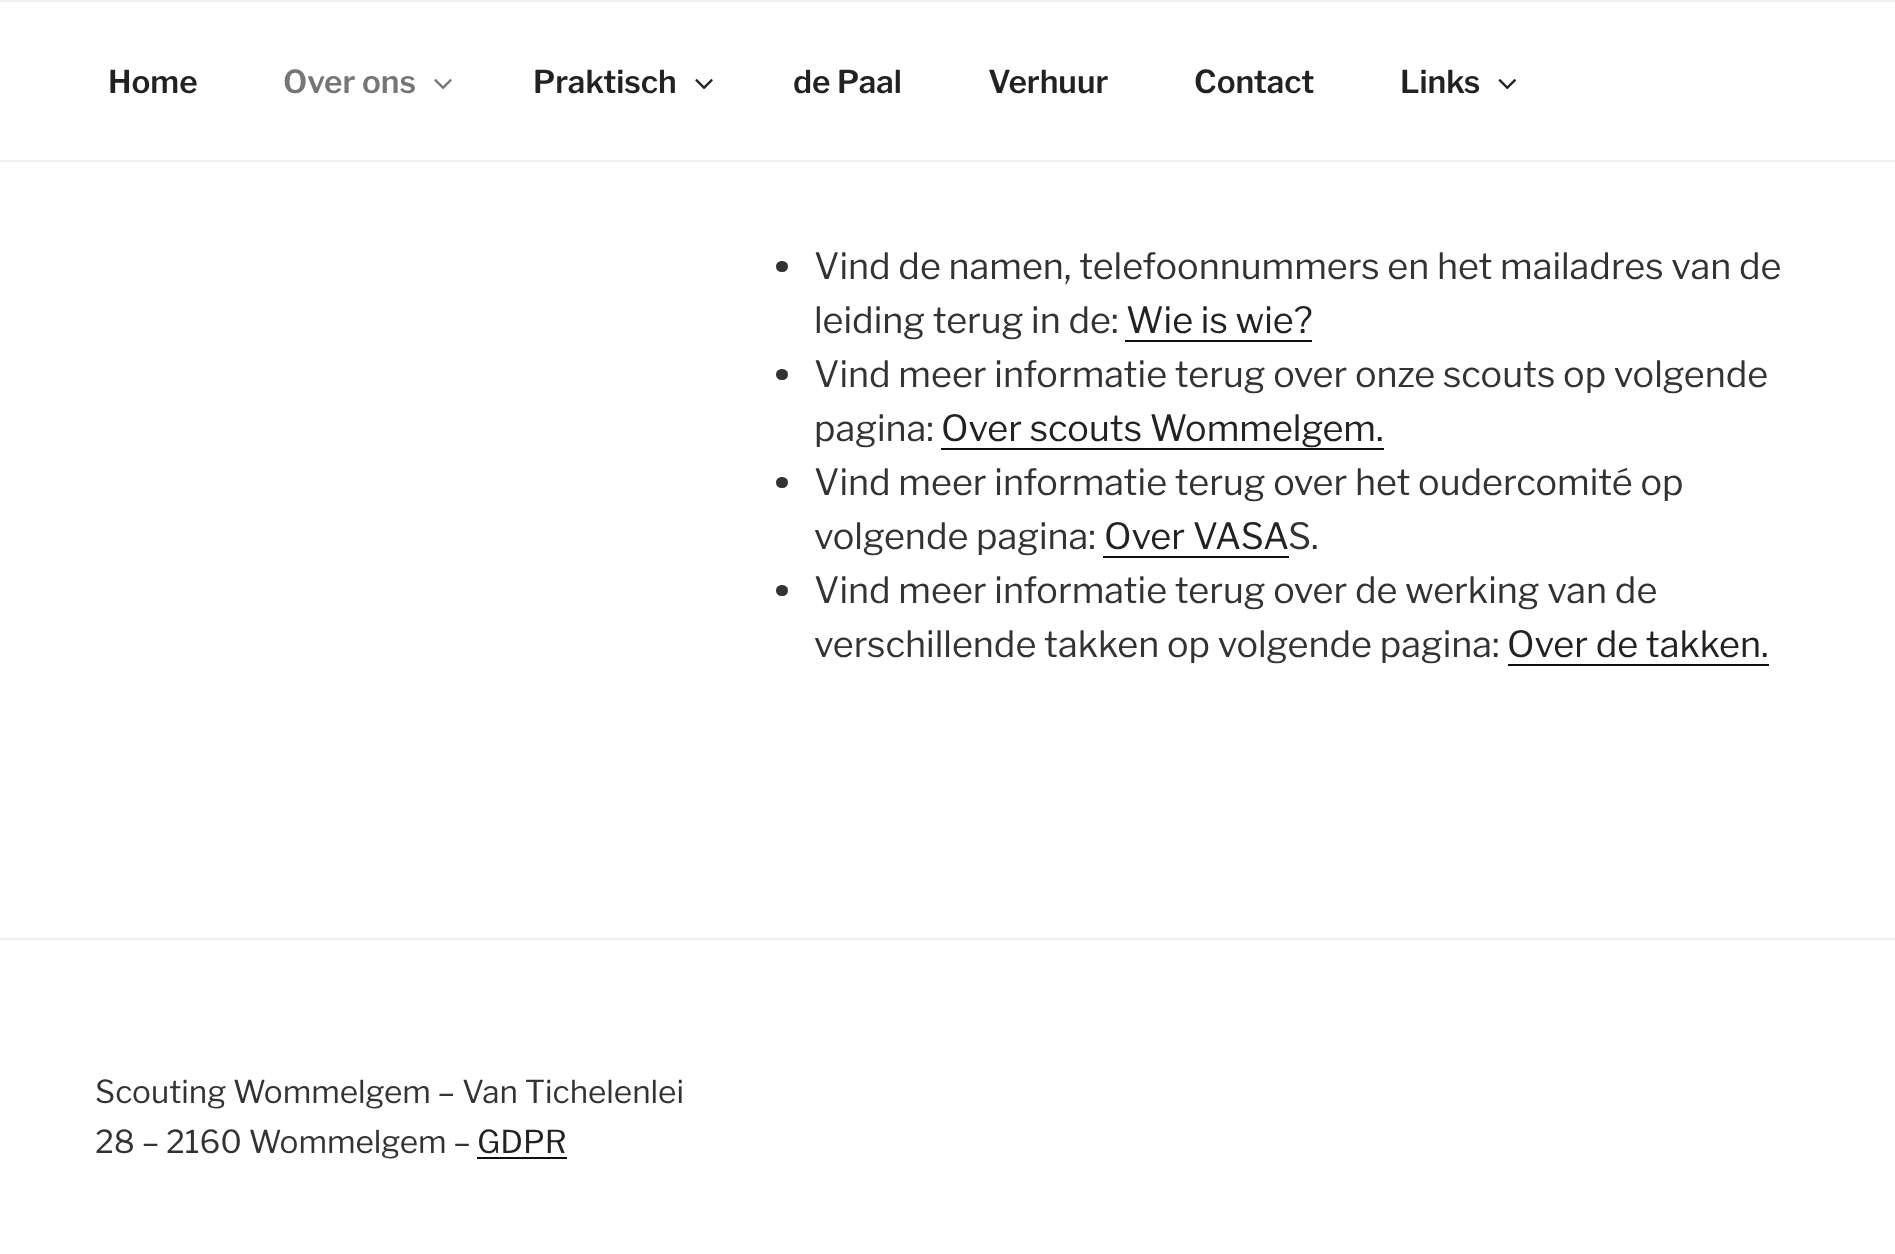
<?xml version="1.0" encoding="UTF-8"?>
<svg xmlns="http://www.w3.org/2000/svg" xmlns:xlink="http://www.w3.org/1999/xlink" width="1895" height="1254">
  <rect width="100%" height="100%" fill="#ffffff" />
  <rect width="1895" height="2" fill="#eeeeee" />
  <rect y="160" width="1895" height="2" fill="#eeeeee" />
  <image x="434" y="79" width="18" height="11" xlink:href="image1.png" />
  <image x="695" y="79" width="18" height="11" xlink:href="image2.png" />
  <image x="1498" y="79" width="18" height="11" xlink:href="image3.png" />
  <rect x="776" y="261" width="12" height="11" rx="5.5" fill="#333333" />
  <rect x="1125" y="340" width="187" height="2" fill="#0f0f0f" />
  <rect x="776" y="369" width="12" height="11" rx="5.5" fill="#333333" />
  <rect x="941" y="448" width="443" height="2" fill="#0f0f0f" />
  <rect x="776" y="477" width="12" height="11" rx="5.5" fill="#333333" />
  <rect x="1103" y="556" width="186" height="2" fill="#0f0f0f" />
  <rect x="776" y="585" width="12" height="11" rx="5.5" fill="#333333" />
  <rect x="1508" y="664" width="261" height="2" fill="#0f0f0f" />
  <rect y="938" width="1895" height="2" fill="#eeeeee" />
  <rect x="477" y="1157" width="90" height="2" fill="#0f0f0f" />
  <text x="108" y="93" style="font-family: 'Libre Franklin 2'; font-size: 31.5px; font-weight: 100; fill: #222222">Home</text>
  <text x="283" y="93" style="font-family: 'Libre Franklin 2'; font-size: 31.5px; font-weight: 100; fill: #767676">Over ons</text>
  <text x="533" y="93" style="font-family: 'Libre Franklin 2'; font-size: 31.5px; font-weight: 100; fill: #222222">Praktisch</text>
  <text x="793" y="93" style="font-family: 'Libre Franklin 2'; font-size: 31.5px; font-weight: 100; fill: #222222">de Paal</text>
  <text x="988" y="93" style="font-family: 'Libre Franklin 2'; font-size: 31.5px; font-weight: 100; fill: #222222">Verhuur</text>
  <text x="1194" y="93" style="font-family: 'Libre Franklin 2'; font-size: 31.5px; font-weight: 100; fill: #222222">Contact</text>
  <text x="1400" y="93" style="font-family: 'Libre Franklin 2'; font-size: 31.5px; font-weight: 100; fill: #222222">Links</text>
  <text x="814" y="279" style="font-family: Libre Franklin; font-size: 36px; font-weight: 100; fill: #333333">Vind de namen, telefoonnummers en het mailadres van de</text>
  <text x="814" y="333" style="font-family: Libre Franklin; font-size: 36px; font-weight: 100; fill: #333333">leiding terug in de:</text>
  <text x="1126" y="333" style="font-family: Libre Franklin; font-size: 36px; font-weight: 100; fill: #222222">Wie is wie?</text>
  <text x="814" y="387" style="font-family: Libre Franklin; font-size: 36px; font-weight: 100; fill: #333333">Vind meer informatie terug over onze scouts op volgende</text>
  <text x="814" y="441" style="font-family: Libre Franklin; font-size: 36px; font-weight: 100; fill: #333333">pagina:</text>
  <text x="941" y="441" style="font-family: Libre Franklin; font-size: 36px; font-weight: 100; fill: #222222">Over scouts Wommelgem.</text>
  <text x="814" y="495" style="font-family: Libre Franklin; font-size: 36px; font-weight: 100; fill: #333333">Vind meer informatie terug over het oudercomité op</text>
  <text x="814" y="549" style="font-family: Libre Franklin; font-size: 36px; font-weight: 100; fill: #333333">volgende pagina:</text>
  <text x="1104" y="549" style="font-family: Libre Franklin; font-size: 36px; font-weight: 100; fill: #222222">Over VASA</text>
  <text x="1288" y="549" style="font-family: Libre Franklin; font-size: 36px; font-weight: 100; fill: #333333">S.</text>
  <text x="814" y="603" style="font-family: Libre Franklin; font-size: 36px; font-weight: 100; fill: #333333">Vind meer informatie terug over de werking van de</text>
  <text x="814" y="657" style="font-family: Libre Franklin; font-size: 36px; font-weight: 100; fill: #333333">verschillende takken op volgende pagina:</text>
  <text x="1507" y="657" style="font-family: Libre Franklin; font-size: 36px; font-weight: 100; fill: #222222">Over de takken.</text>
  <text x="95" y="1103" style="font-family: Libre Franklin; font-size: 31.5px; font-weight: 100; fill: #333333">Scouting Wommelgem – Van Tichelenlei</text>
  <text x="95" y="1153" style="font-family: Libre Franklin; font-size: 31.5px; font-weight: 100; fill: #333333">28 – 2160 Wommelgem –</text>
  <text x="477" y="1153" style="font-family: Libre Franklin; font-size: 31.5px; font-weight: 100; fill: #222222">GDPR</text>
</svg>
